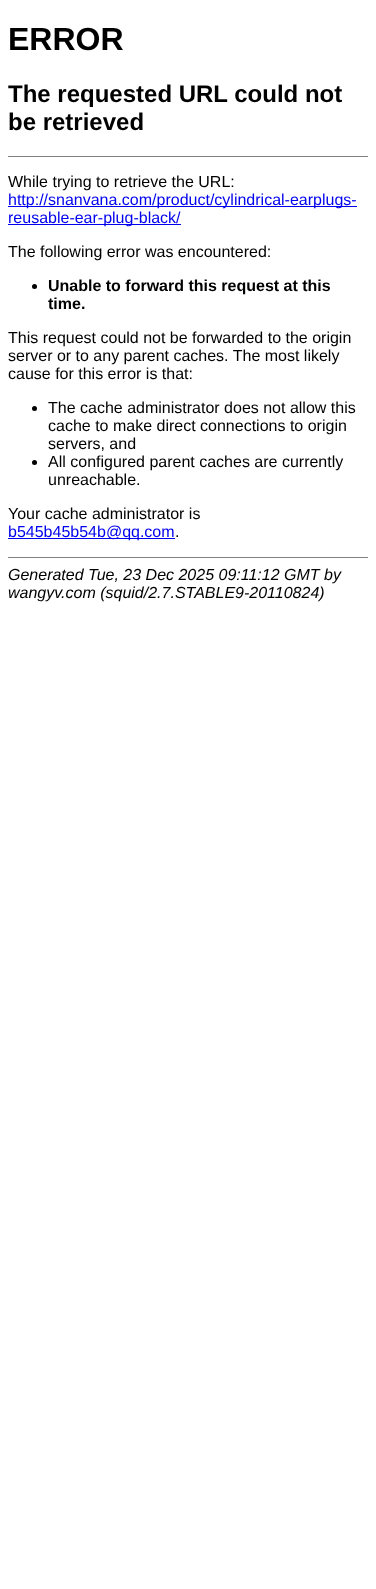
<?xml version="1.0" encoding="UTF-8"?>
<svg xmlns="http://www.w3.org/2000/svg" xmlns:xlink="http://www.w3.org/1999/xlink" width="376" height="1589">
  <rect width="100%" height="100%" fill="#ffffff" />
  <rect x="8" y="156" width="360" height="1" fill="#808080" />
  <rect x="8" y="206" width="349" height="1" fill="#0000ee" />
  <rect x="8" y="224" width="173" height="1" fill="#0000ee" />
  <circle cx="34.5" cy="286.5" r="2.5" fill="#000000" />
  <circle cx="34.5" cy="408.5" r="2.5" fill="#000000" />
  <circle cx="34.5" cy="462.5" r="2.5" fill="#000000" />
  <rect x="8" y="538" width="167" height="1" fill="#0000ee" />
  <rect x="8" y="557" width="360" height="1" fill="#808080" />
  <text x="8" y="50" style="font-family: Liberation Sans; font-size: 32px; font-weight: bold; fill: #000000">ERROR</text>
  <text x="8" y="102" style="font-family: Liberation Sans; font-size: 24px; font-weight: bold; fill: #000000">The requested URL could not</text>
  <text x="8" y="130" style="font-family: Liberation Sans; font-size: 24px; font-weight: bold; fill: #000000">be retrieved</text>
  <text x="8" y="187" style="font-family: Liberation Sans; font-size: 16px; fill: #000000">While trying to retrieve the URL:</text>
  <text x="8" y="205" style="font-family: Liberation Sans; font-size: 16px; fill: #0000ee">http://snanvana.com/product/cylindrical-earplugs-</text>
  <text x="8" y="223" style="font-family: Liberation Sans; font-size: 16px; fill: #0000ee">reusable-ear-plug-black/</text>
  <text x="8" y="257" style="font-family: Liberation Sans; font-size: 16px; fill: #000000">The following error was encountered:</text>
  <text x="48" y="291" style="font-family: Liberation Sans; font-size: 16px; font-weight: bold; fill: #000000">Unable to forward this request at this</text>
  <text x="48" y="309" style="font-family: Liberation Sans; font-size: 16px; font-weight: bold; fill: #000000">time.</text>
  <text x="8" y="343" style="font-family: Liberation Sans; font-size: 16px; fill: #000000">This request could not be forwarded to the origin</text>
  <text x="8" y="361" style="font-family: Liberation Sans; font-size: 16px; fill: #000000">server or to any parent caches. The most likely</text>
  <text x="8" y="379" style="font-family: Liberation Sans; font-size: 16px; fill: #000000">cause for this error is that:</text>
  <text x="48" y="413" style="font-family: Liberation Sans; font-size: 16px; fill: #000000">The cache administrator does not allow this</text>
  <text x="48" y="431" style="font-family: Liberation Sans; font-size: 16px; fill: #000000">cache to make direct connections to origin</text>
  <text x="48" y="449" style="font-family: Liberation Sans; font-size: 16px; fill: #000000">servers, and</text>
  <text x="48" y="467" style="font-family: Liberation Sans; font-size: 16px; fill: #000000">All configured parent caches are currently</text>
  <text x="48" y="485" style="font-family: Liberation Sans; font-size: 16px; fill: #000000">unreachable.</text>
  <text x="8" y="519" style="font-family: Liberation Sans; font-size: 16px; fill: #000000">Your cache administrator is</text>
  <text x="8" y="537" style="font-family: Liberation Sans; font-size: 16px; fill: #0000ee">b545b45b54b@qq.com</text>
  <text x="175" y="537" style="font-family: Liberation Sans; font-size: 16px; fill: #000000">.</text>
  <text x="8" y="580" style="font-family: Liberation Sans; font-size: 16px; font-style: italic; fill: #000000">Generated Tue, 23 Dec 2025 09:11:12 GMT by</text>
  <text x="8" y="598" style="font-family: Liberation Sans; font-size: 16px; font-style: italic; fill: #000000">wangyv.com (squid/2.7.STABLE9-20110824)</text>
</svg>
